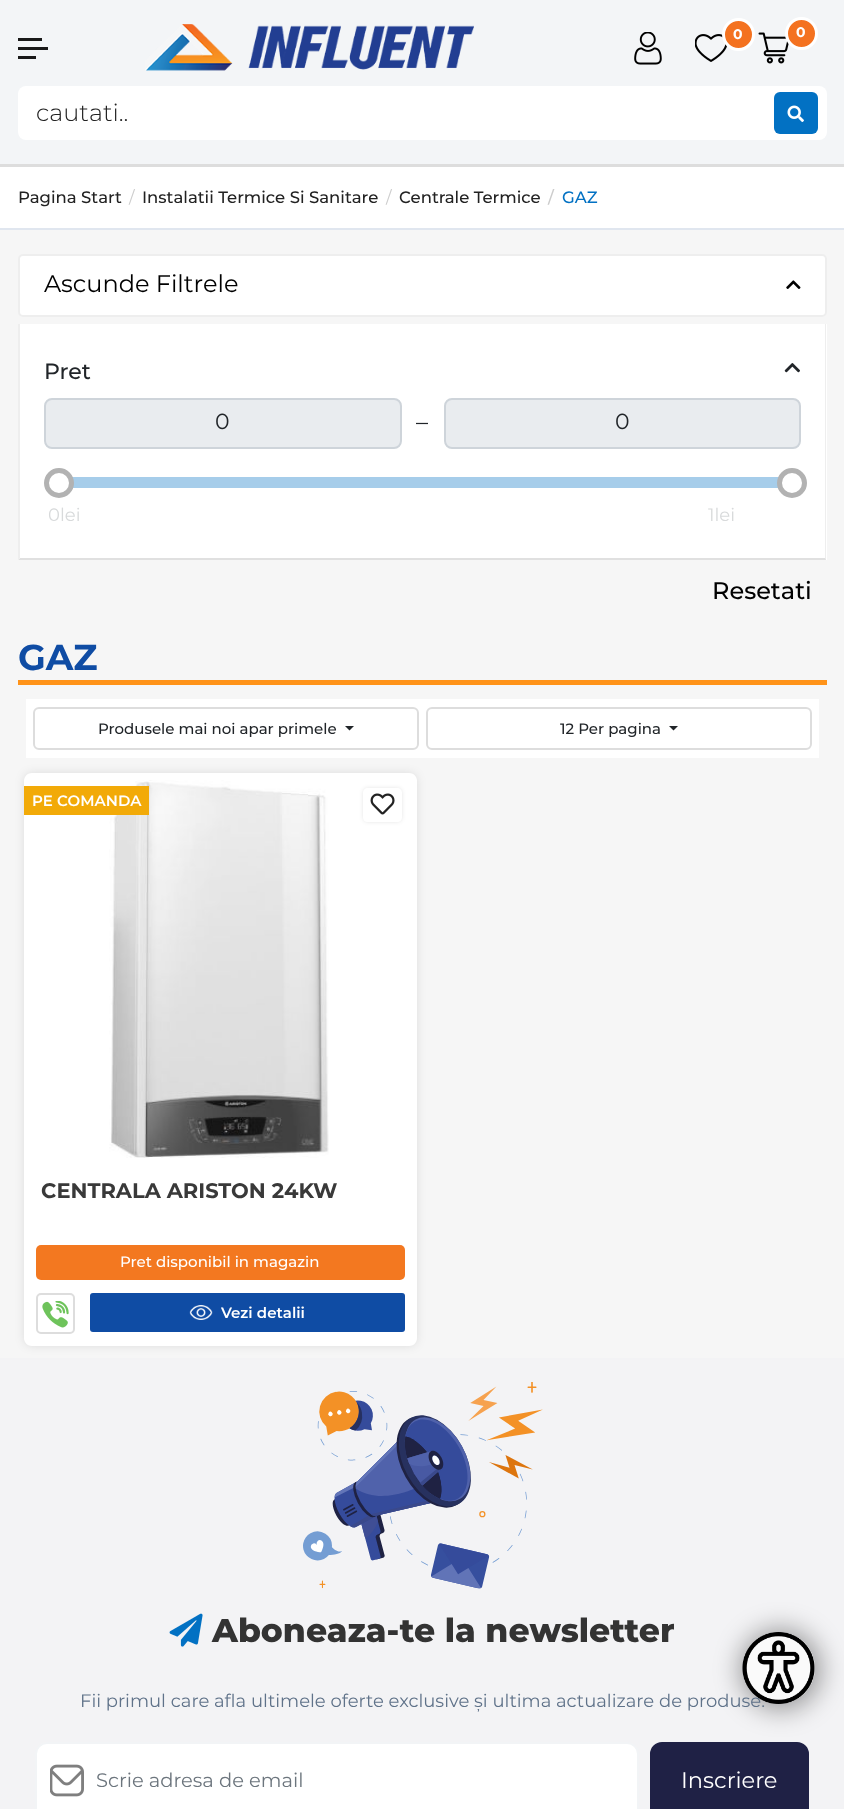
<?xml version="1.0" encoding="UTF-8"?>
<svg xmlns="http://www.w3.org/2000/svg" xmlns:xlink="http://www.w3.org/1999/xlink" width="844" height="1809">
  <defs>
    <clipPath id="clip1"><path d="M 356 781 h 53 v 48 h -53 z m 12 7 h 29 c 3 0 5 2 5 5 v 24 c 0 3 -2 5 -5 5 h -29 c -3 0 -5 -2 -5 -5 v -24 c 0 -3 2 -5 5 -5 z" clip-rule="evenodd" /></clipPath>
  </defs>
  <rect width="100%" height="100%" fill="#f6f6f6" />
  <rect width="844" height="164" fill="#f3f5f7" />
  <rect y="164" width="844" height="3" fill="#dddddd" />
  <image x="145" y="24" width="329" height="47" xlink:href="image1.png" />
  <image x="634" y="32" width="28" height="33" xlink:href="image2.png" />
  <image x="695" y="34" width="32" height="28" xlink:href="image3.png" />
  <circle cx="738.5" cy="34.5" r="15" fill="#f47220" stroke="#ffffff" stroke-width="3" />
  <image x="758" y="32" width="31" height="32" xlink:href="image4.png" />
  <circle cx="801.5" cy="33.5" r="15" fill="#f47220" stroke="#ffffff" stroke-width="3" />
  <rect x="18" y="38" width="24" height="3" fill="#191919" />
  <rect x="18" y="47" width="30" height="3" fill="#191919" />
  <rect x="18" y="56" width="18" height="3" fill="#191919" />
  <rect x="18" y="86" width="809" height="54" rx="8" fill="#ffffff" />
  <rect x="774" y="92" width="44" height="42" rx="6" fill="#0271c3" />
  <image x="787" y="105" width="17" height="17" xlink:href="image5.png" />
  <rect y="167" width="844" height="61" fill="#ffffff" />
  <rect y="228" width="844" height="2" fill="#e0e6ef" />
  <rect x="19" y="255" width="807" height="61" rx="4" fill="#ffffff" stroke="#eeeeee" stroke-width="2" />
  <image x="786" y="280" width="15" height="9" xlink:href="image6.png" />
  <rect x="18" y="324" width="809" height="236" fill="#ffffff" />
  <path d="M 826 324 v 236 l -1 -2 v -234 z" fill="#eeeeee" />
  <path d="M 826 560 h -808 l 2 -2 h 805 z" fill="#000000" fill-opacity="0.12" />
  <path d="M 18 560 v -236 h 2 v 234 z" fill="#eeeeee" />
  <image x="784" y="363" width="16" height="10" xlink:href="image7.png" />
  <rect x="45" y="399" width="356" height="49" rx="7" fill="#e9ecef" stroke="#ced4da" stroke-width="2" />
  <rect x="445" y="399" width="355" height="49" rx="7" fill="#e9ecef" stroke="#ced4da" stroke-width="2" />
  <rect x="72" y="477" width="707" height="11" fill="#a6cdea" />
  <circle cx="59" cy="483" r="12.5" fill="#ffffff" stroke="#b2b2b2" stroke-width="5" />
  <circle cx="792" cy="483" r="12.5" fill="#ffffff" stroke="#b2b2b2" stroke-width="5" />
  <rect x="18" y="680" width="809" height="5" fill="#ff9319" />
  <rect x="26" y="699" width="793" height="59" fill="#ffffff" />
  <rect x="34" y="708" width="384" height="41" rx="5" fill="none" stroke="#dddddd" stroke-width="2" />
  <path d="M 345 726 h 9 l -4.5 4.5 z" fill="#212529" />
  <rect x="427" y="708" width="384" height="41" rx="5" fill="none" stroke="#dddddd" stroke-width="2" />
  <path d="M 669 726 h 9 l -4.5 4.5 z" fill="#212529" />
  <rect y="1358" width="844" height="451" fill="#f3f3f5" />
  <rect x="24" y="773" width="393" height="573" rx="8" fill="#000000" fill-opacity="0.1" filter="blur(5px)" />
  <path d="M 32 773 h 377 c 4.5 0 8 3.5 8 8 v 385 h -393 v -385 c 0 -4.5 3.5 -8 8 -8 z" fill="#ffffff" />
  <image x="109" y="780" width="220" height="378" xlink:href="image8.png" />
  <rect x="24" y="786" width="125" height="29" fill="#f2aa08" />
  <g clip-path="url(#clip1)">
    <rect x="363" y="788" width="39" height="34" rx="5" fill="#000000" fill-opacity="0.1" filter="blur(2px)" />
  </g>
  <image x="370" y="793" width="25" height="22" xlink:href="image9.png" />
  <path d="M 24 1166 h 393 v 172 c 0 4.5 -3.5 8 -8 8 h -377 c -4.5 0 -8 -3.5 -8 -8 z" fill="#ffffff" />
  <rect x="36" y="1245" width="369" height="35" rx="5" fill="#f37820" />
  <rect x="37" y="1294" width="37" height="39" rx="4" fill="none" stroke="#dddddd" stroke-width="2" />
  <image x="42" y="1301" width="27" height="27" xlink:href="image10.png" />
  <rect x="90" y="1293" width="315" height="39" rx="3" fill="#0f4ca4" />
  <image x="189" y="1305" width="24" height="15" xlink:href="image11.png" />
  <image x="303" y="1382" width="240" height="207" xlink:href="image12.png" />
  <image x="169" y="1613" width="34" height="34" xlink:href="image13.png" />
  <rect x="36" y="1743" width="602" height="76" rx="11" fill="#ffffff" stroke="#f2f4f6" stroke-width="2" />
  <image x="50" y="1764" width="34" height="33" xlink:href="image14.png" />
  <rect x="651" y="1743" width="157" height="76" rx="11" fill="#1f2145" stroke="#1f2145" stroke-width="2" />
  <rect x="740" y="1629" width="81" height="81" rx="40.5" fill="#000000" fill-opacity="0.38" filter="blur(13px)" />
  <text x="733" y="39" style="font-family: Montserrat; font-size: 14px; font-weight: bold; fill: #ffffff">0</text>
  <text x="796" y="37" style="font-family: Montserrat; font-size: 14px; font-weight: bold; fill: #ffffff">0</text>
  <text x="36" y="121" style="font-family: Montserrat; font-size: 24px; font-weight: 300; fill: #222222">cautati..</text>
  <text x="18" y="203" style="font-family: Montserrat; font-size: 16.5px; font-weight: 500; fill: #222222">Pagina Start</text>
  <text x="129" y="203" style="font-family: Montserrat; font-size: 16.5px; fill: #cccccc">/</text>
  <text x="142" y="203" style="font-family: Montserrat; font-size: 16.5px; font-weight: 500; fill: #222222">Instalatii Termice Si Sanitare</text>
  <text x="386" y="203" style="font-family: Montserrat; font-size: 16.5px; fill: #cccccc">/</text>
  <text x="399" y="203" style="font-family: Montserrat; font-size: 16.5px; font-weight: 500; fill: #222222">Centrale Termice</text>
  <text x="548" y="203" style="font-family: Montserrat; font-size: 16.5px; font-weight: 500; fill: #cccccc">/</text>
  <text x="562" y="203" style="font-family: Montserrat; font-size: 16.5px; font-weight: 500; fill: #0271c3">GAZ</text>
  <text x="44" y="292" style="font-family: Montserrat; font-size: 24px; fill: #000000">Ascunde Filtrele</text>
  <text x="44" y="379" style="font-family: Montserrat; font-size: 22px; font-weight: 500; fill: #212529">Pret</text>
  <text x="215" y="429" style="font-family: Montserrat; font-size: 22px; fill: #212529">0</text>
  <text x="416" y="430" style="font-family: Montserrat; font-size: 24px; fill: #212529">–</text>
  <text x="615" y="429" style="font-family: Montserrat; font-size: 22px; fill: #212529">0</text>
  <text x="48" y="521" style="font-family: Montserrat; font-size: 18px; fill: #d8dadb">0lei</text>
  <text x="708" y="521" style="font-family: Montserrat; font-size: 18px; fill: #d8dadb">1lei</text>
  <text x="712" y="599" style="font-family: Montserrat; font-size: 24px; font-weight: 500; fill: #000000">Resetati</text>
  <text x="18" y="670" style="font-family: Montserrat; font-size: 36px; font-weight: bold; fill: #0f4ca4">GAZ</text>
  <text x="98" y="734" style="font-family: Montserrat; font-size: 15px; font-weight: 500; fill: #212529">Produsele mai noi apar primele</text>
  <text x="560" y="734" style="font-family: Montserrat; font-size: 15px; font-weight: 500; fill: #212529">12 Per pagina</text>
  <text x="32" y="806" style="font-family: Montserrat; font-size: 15px; font-weight: 600; fill: #ffffff">PE COMANDA</text>
  <text x="41" y="1198" style="font-family: Montserrat; font-size: 21px; font-weight: bold; fill: #393939">CENTRALA ARISTON 24KW</text>
  <text x="120" y="1267" style="font-family: Montserrat; font-size: 15px; font-weight: 500; fill: #ffffff">Pret disponibil in magazin</text>
  <text x="221" y="1318" style="font-family: Montserrat; font-size: 15px; font-weight: 600; fill: #ffffff">Vezi detalii</text>
  <text x="212" y="1642" style="font-family: Montserrat; font-size: 33px; font-weight: 800; fill: #333333">Aboneaza-te la newsletter</text>
  <text x="80" y="1707" style="font-family: Montserrat; font-size: 18px; fill: #5f7289">Fii primul care afla ultimele oferte exclusive și ultima actualizare de produse.</text>
  <text x="96" y="1787" style="font-family: Montserrat; font-size: 19.5px; fill: #6c757d">Scrie adresa de email</text>
  <text x="681" y="1788" style="font-family: Montserrat; font-size: 22.5px; fill: #ffffff">Inscriere</text>
  <circle cx="779" cy="1668" r="36" fill="#fafafa" />
  <image x="742" y="1632" width="73" height="72" xlink:href="image15.png" />
</svg>
